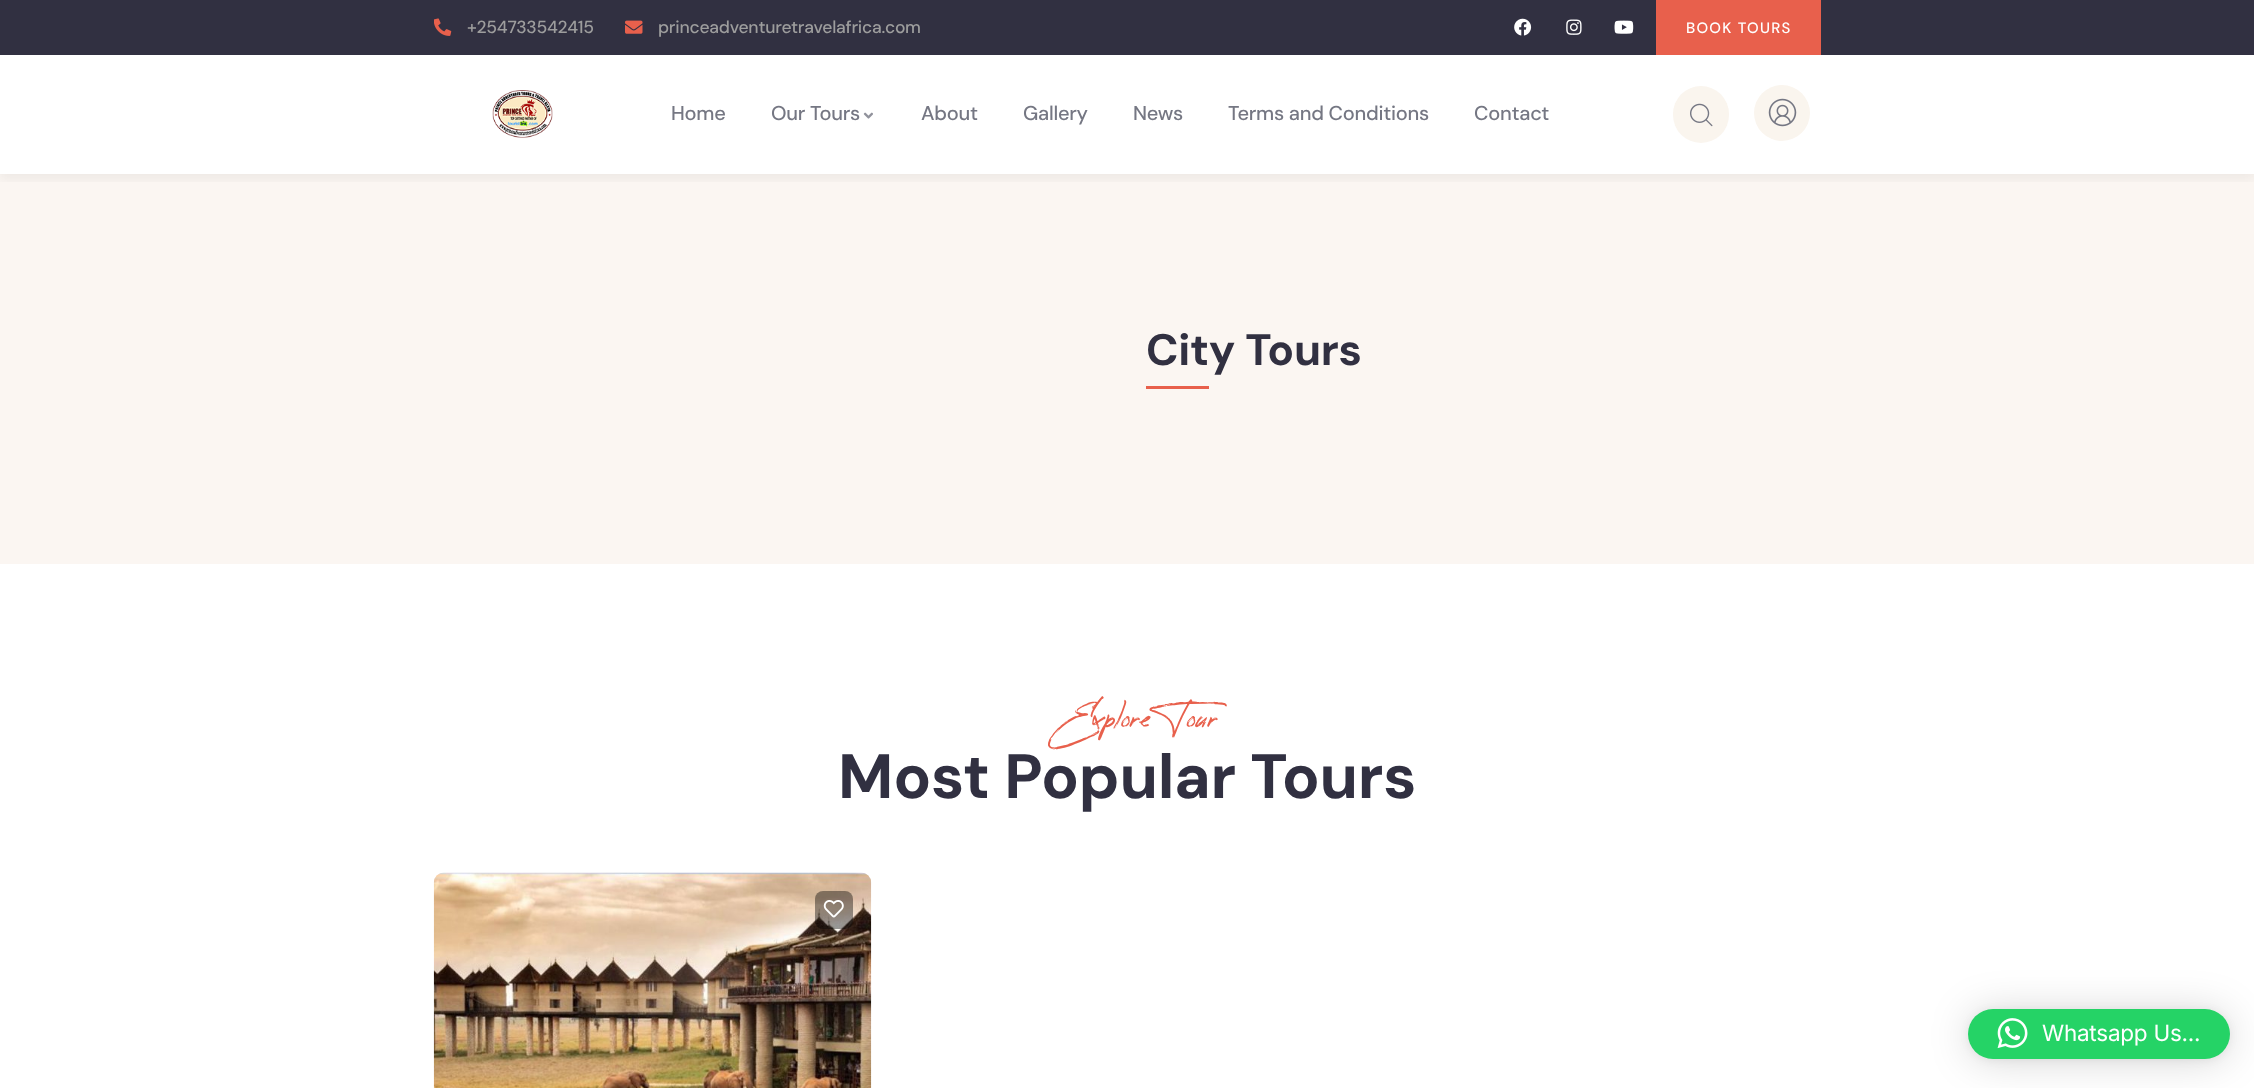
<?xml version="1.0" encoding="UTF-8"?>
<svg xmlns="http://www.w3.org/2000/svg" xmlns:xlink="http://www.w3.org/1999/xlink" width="2254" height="1088">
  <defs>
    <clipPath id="clip1"><rect x="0" y="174" width="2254" height="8" /></clipPath>
  </defs>
  <rect width="100%" height="100%" fill="#ffffff" />
  <rect width="2254" height="55" fill="#313041" />
  <image x="434" y="18" width="18" height="18" xlink:href="image1.png" />
  <image x="625" y="20" width="18" height="14" xlink:href="image2.png" />
  <image x="1514" y="18" width="18" height="18" xlink:href="image3.png" />
  <image x="1566" y="19" width="16" height="16" xlink:href="image4.png" />
  <image x="1614" y="20" width="20" height="14" xlink:href="image5.png" />
  <rect y="174" width="2254" height="390" fill="#fbf6f2" />
  <g clip-path="url(#clip1)">
    <rect y="61" width="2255" height="119" fill="#000000" fill-opacity="0.05" filter="blur(6px)" />
  </g>
  <rect x="1656" width="165" height="55" fill="#e8604c" />
  <rect x="9" y="173" width="2245" height="1" fill="#ffffff" />
  <image x="492" y="90" width="61" height="48" xlink:href="image6.png" />
  <image x="863" y="112" width="10" height="7" xlink:href="image7.png" />
  <rect x="1673" y="86" width="56" height="57" rx="28" fill="#faf5ee" />
  <image x="1690" y="103" width="23" height="24" xlink:href="image8.png" />
  <circle cx="1782" cy="113" r="28" fill="#faf5ee" />
  <image x="1768" y="98" width="29" height="29" xlink:href="image9.png" />
  <rect x="1146" y="386" width="63" height="3" fill="#e8604c" />
  <image x="433" y="872" width="439" height="216" xlink:href="image10.png" />
  <rect x="815" y="891" width="38" height="38" rx="8" fill="#000000" fill-opacity="0.4" />
  <image x="823" y="900" width="21" height="18" xlink:href="image11.png" />
  <rect x="1968" y="1011" width="262" height="50" rx="25" fill="#000000" fill-opacity="0.16" filter="blur(20px)" />
  <rect x="1968" y="1010" width="262" height="50" rx="25" fill="#000000" fill-opacity="0.06" filter="blur(4px)" />
  <rect x="1968" y="1009" width="262" height="50" rx="25" fill="#25d366" />
  <image x="1997" y="1018" width="31" height="31" xlink:href="image12.png" />
  <text x="467" y="33" style="font-family: DM Sans; font-size: 17.5px; font-weight: 500; letter-spacing: -0.25px; fill: #9d9d9d">+254733542415</text>
  <text x="658" y="33" style="font-family: DM Sans; font-size: 17.5px; font-weight: 500; letter-spacing: -0.25px; fill: #9d9d9d">princeadventuretravelafrica.com</text>
  <text x="1686" y="33" style="font-family: DM Sans; font-size: 15px; font-weight: 500; letter-spacing: 1.25px; fill: #ffffff">BOOK TOURS</text>
  <text x="671" y="120" style="font-family: DM Sans; font-size: 20px; font-weight: 500; letter-spacing: -0.25px; fill: #757783">Home</text>
  <text x="771" y="120" style="font-family: DM Sans; font-size: 20px; font-weight: 500; letter-spacing: -0.25px; fill: #757783">Our Tours</text>
  <text x="921" y="120" style="font-family: DM Sans; font-size: 20px; font-weight: 500; letter-spacing: -0.25px; fill: #757783">About</text>
  <text x="1023" y="120" style="font-family: DM Sans; font-size: 20px; font-weight: 500; letter-spacing: -0.25px; fill: #757783">Gallery</text>
  <text x="1133" y="120" style="font-family: DM Sans; font-size: 20px; font-weight: 500; letter-spacing: -0.25px; fill: #757783">News</text>
  <text x="1228" y="120" style="font-family: DM Sans; font-size: 20px; font-weight: 500; letter-spacing: -0.25px; fill: #757783">Terms and Conditions</text>
  <text x="1474" y="120" style="font-family: DM Sans; font-size: 20px; font-weight: 500; letter-spacing: -0.25px; fill: #757783">Contact</text>
  <text x="1146" y="365" style="font-family: DM Sans; font-size: 44px; font-weight: bold; letter-spacing: -0.25px; fill: #313041">City Tours</text>
  <text x="1056" y="728" style="font-family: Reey; font-size: 25px; fill: #e8604c">Explore Tour</text>
  <text x="838" y="798" style="font-family: DM Sans; font-size: 62.5px; font-weight: bold; letter-spacing: -0.25px; fill: #313041">Most Popular Tours</text>
  <text x="2042" y="1041" style="font-family: Inter; font-size: 22.5px; letter-spacing: -0.25px; fill: #ffffff">Whatsapp Us...</text>
</svg>
